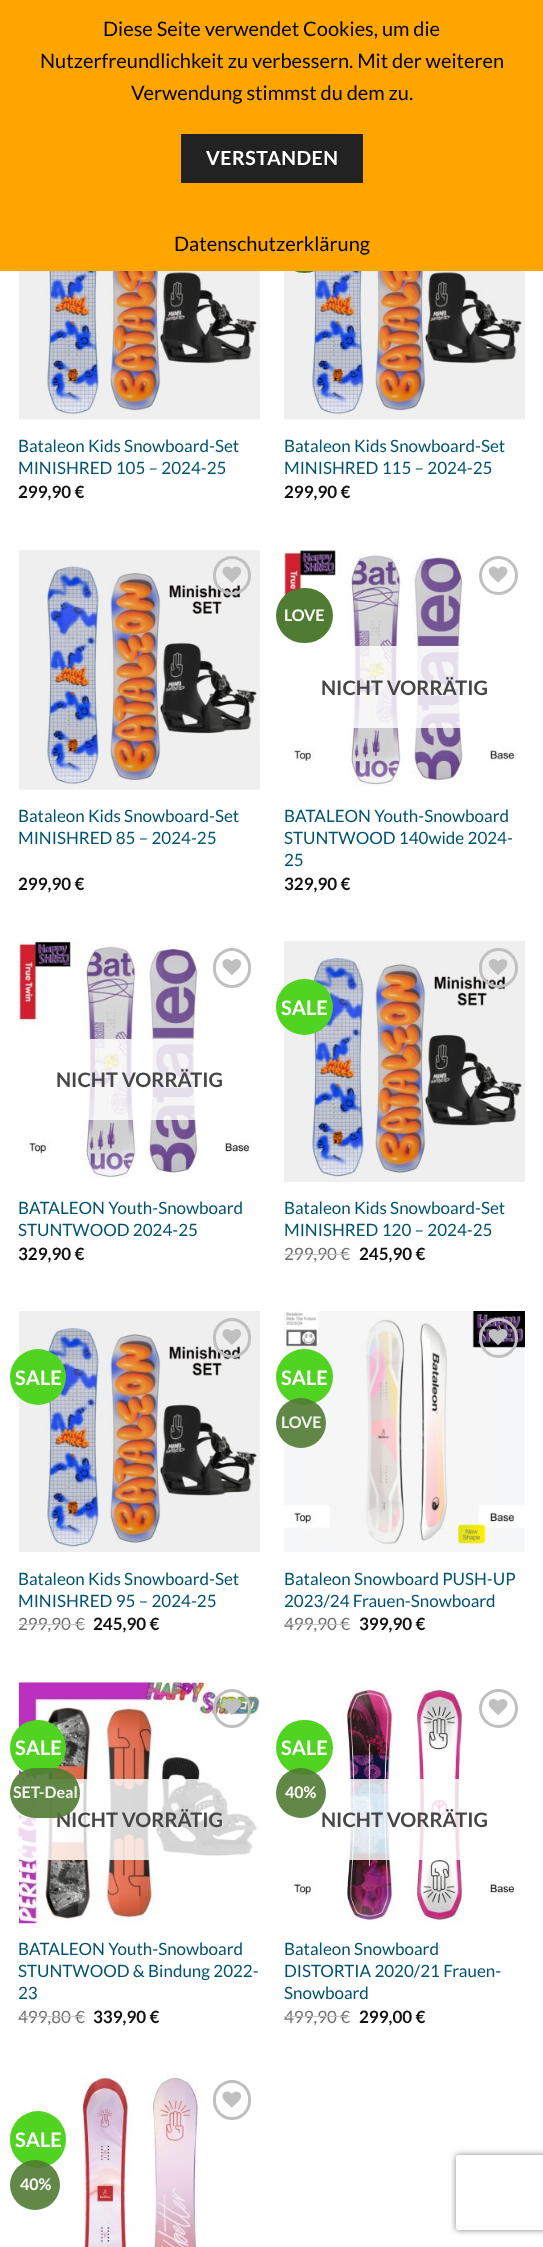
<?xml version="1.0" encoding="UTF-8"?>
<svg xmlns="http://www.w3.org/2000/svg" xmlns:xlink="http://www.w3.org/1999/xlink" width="543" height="2247">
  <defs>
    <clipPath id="clip1"><path d="M 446 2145 h 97 v 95 h -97 z m 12.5 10 h 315 c 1.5 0 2.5 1 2.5 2.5 v 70 c 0 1.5 -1 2.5 -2.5 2.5 h -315 c -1.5 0 -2.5 -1 -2.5 -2.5 v -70 c 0 -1.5 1 -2.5 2.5 -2.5 z" clip-rule="evenodd" /></clipPath>
  </defs>
  <rect width="100%" height="100%" fill="#ffffff" />
  <image x="284" y="271" width="241" height="149" xlink:href="image1.png" />
  <circle cx="304.5" cy="244.5" r="28.5" fill="#507b32" />
  <rect width="543" height="271" fill="#ffa500" />
  <rect x="181" y="134" width="182" height="49" fill="#222222" />
  <image x="19" y="271" width="241" height="149" xlink:href="image1.png" />
  <image x="19" y="550" width="241" height="240" xlink:href="image2.png" />
  <rect x="214.5" y="557.5" width="35" height="36" rx="17.5" fill="none" stroke="#c0c0c0" stroke-width="3" />
  <image x="222" y="566" width="20" height="17" xlink:href="image3.png" />
  <image x="284" y="550" width="231" height="237" xlink:href="image4.png" />
  <rect x="276" y="588" width="57" height="55" rx="27.5" fill="#507b32" />
  <circle cx="498.5" cy="575.5" r="18" fill="none" stroke="#c0c0c0" stroke-width="3" />
  <image x="488" y="566" width="20" height="17" xlink:href="image5.png" />
  <rect x="349" y="646" width="115" height="82" fill="#ffffff" fill-opacity="0.81" />
  <image x="19" y="941" width="232" height="238" xlink:href="image6.png" />
  <rect x="214.5" y="949.5" width="35" height="37" rx="17.5" fill="none" stroke="#c0c0c0" stroke-width="3" />
  <image x="222" y="959" width="20" height="16" xlink:href="image7.png" />
  <rect x="84" y="1039" width="115" height="81" fill="#ffffff" fill-opacity="0.81" />
  <image x="284" y="941" width="241" height="241" xlink:href="image8.png" />
  <rect x="276" y="979" width="57" height="56" rx="28" fill="#50d321" />
  <rect x="480.5" y="949.5" width="36" height="37" rx="18" fill="none" stroke="#c0c0c0" stroke-width="3" />
  <image x="488" y="959" width="20" height="16" xlink:href="image9.png" />
  <image x="19" y="1311" width="241" height="241" xlink:href="image8.png" />
  <circle cx="38" cy="1377" r="28" fill="#50d321" />
  <rect x="214.5" y="1319.5" width="35" height="37" rx="17.5" fill="none" stroke="#c0c0c0" stroke-width="3" />
  <image x="222" y="1329" width="20" height="16" xlink:href="image10.png" />
  <image x="284" y="1311" width="241" height="241" xlink:href="image11.png" />
  <rect x="276" y="1349" width="57" height="56" rx="28" fill="#50d321" />
  <circle cx="301" cy="1423" r="25" fill="#507b32" fill-opacity="0.9" />
  <rect x="480.5" y="1319.5" width="36" height="37" rx="18" fill="none" stroke="#c0c0c0" stroke-width="3" />
  <image x="488" y="1329" width="20" height="16" xlink:href="image12.png" />
  <image x="18" y="1682" width="242" height="242" xlink:href="image13.png" />
  <rect x="10" y="1720" width="56" height="55" rx="27.5" fill="#50d321" />
  <rect x="214.5" y="1690.5" width="35" height="36" rx="17.5" fill="none" stroke="#c0c0c0" stroke-width="3" />
  <image x="222" y="1699" width="20" height="16" xlink:href="image14.png" />
  <rect x="19" y="1779" width="238" height="81" fill="#ffffff" fill-opacity="0.81" />
  <image x="291" y="1682" width="224" height="241" xlink:href="image15.png" />
  <rect x="276" y="1720" width="57" height="55" rx="27.5" fill="#50d321" />
  <circle cx="498.5" cy="1708.5" r="18" fill="none" stroke="#c0c0c0" stroke-width="3" />
  <image x="488" y="1699" width="20" height="16" xlink:href="image16.png" />
  <rect x="347" y="1779" width="117" height="81" fill="#ffffff" fill-opacity="0.81" />
  <rect x="10" y="2111" width="56" height="57" rx="28" fill="#50d321" />
  <circle cx="35" cy="2185" r="25" fill="#507b32" fill-opacity="0.9" />
  <image x="82" y="2074" width="117" height="173" xlink:href="image17.png" />
  <rect x="214.5" y="2081.5" width="35" height="37" rx="17.5" fill="none" stroke="#c0c0c0" stroke-width="3" />
  <image x="222" y="2091" width="20" height="17" xlink:href="image18.png" />
  <g clip-path="url(#clip1)">
    <rect x="456" y="2155" width="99" height="75" rx="2.5" fill="#808080" filter="blur(3px)" />
  </g>
  <text x="103" y="36" style="font-family: Lato; font-size: 20px; fill: #000000">Diese Seite verwendet Cookies, um die</text>
  <text x="40" y="68" style="font-family: Lato; font-size: 20px; fill: #000000">Nutzerfreundlichkeit zu verbessern. Mit der weiteren</text>
  <text x="131" y="100" style="font-family: Lato; font-size: 20px; fill: #000000">Verwendung stimmst du dem zu.</text>
  <text x="206" y="165" style="font-family: Lato; font-size: 19.5px; font-weight: bold; letter-spacing: 0.5px; fill: #ffffff">VERSTANDEN</text>
  <text x="174" y="251" style="font-family: Lato; font-size: 20px; fill: #000000">Datenschutzerklärung</text>
  <text x="18" y="452" style="font-family: Lato; font-size: 17px; fill: #01536f">Bataleon Kids Snowboard-Set</text>
  <text x="18" y="474" style="font-family: Lato; font-size: 17px; fill: #01536f">MINISHRED 105 – 2024-25</text>
  <text x="18" y="498" style="font-family: Lato; font-size: 17px; font-weight: bold; fill: #111111">299,90 €</text>
  <text x="284" y="452" style="font-family: Lato; font-size: 17px; fill: #01536f">Bataleon Kids Snowboard-Set</text>
  <text x="284" y="474" style="font-family: Lato; font-size: 17px; fill: #01536f">MINISHRED 115 – 2024-25</text>
  <text x="284" y="498" style="font-family: Lato; font-size: 17px; font-weight: bold; fill: #111111">299,90 €</text>
  <text x="18" y="822" style="font-family: Lato; font-size: 17px; fill: #01536f">Bataleon Kids Snowboard-Set</text>
  <text x="18" y="844" style="font-family: Lato; font-size: 17px; fill: #01536f">MINISHRED 85 – 2024-25</text>
  <text x="18" y="890" style="font-family: Lato; font-size: 17px; font-weight: bold; fill: #111111">299,90 €</text>
  <text x="284" y="621" style="font-family: Lato; font-size: 16px; font-weight: bold; fill: #ffffff">LOVE</text>
  <text x="321" y="695" style="font-family: Lato; font-size: 20px; font-weight: bold; fill: #474647">NICHT VORRÄTIG</text>
  <text x="284" y="822" style="font-family: Lato; font-size: 17px; fill: #01536f">BATALEON Youth-Snowboard</text>
  <text x="284" y="844" style="font-family: Lato; font-size: 17px; fill: #01536f">STUNTWOOD 140wide 2024-</text>
  <text x="284" y="866" style="font-family: Lato; font-size: 17px; fill: #01536f">25</text>
  <text x="284" y="890" style="font-family: Lato; font-size: 17px; font-weight: bold; fill: #111111">329,90 €</text>
  <text x="56" y="1087" style="font-family: Lato; font-size: 20px; font-weight: bold; fill: #474647">NICHT VORRÄTIG</text>
  <text x="18" y="1214" style="font-family: Lato; font-size: 17px; fill: #01536f">BATALEON Youth-Snowboard</text>
  <text x="18" y="1236" style="font-family: Lato; font-size: 17px; fill: #01536f">STUNTWOOD 2024-25</text>
  <text x="18" y="1260" style="font-family: Lato; font-size: 17px; font-weight: bold; fill: #111111">329,90 €</text>
  <text x="281" y="1015" style="font-family: Lato; font-size: 20px; font-weight: bold; fill: #ffffff">SALE</text>
  <text x="284" y="1214" style="font-family: Lato; font-size: 17px; fill: #01536f">Bataleon Kids Snowboard-Set</text>
  <text x="284" y="1236" style="font-family: Lato; font-size: 17px; fill: #01536f">MINISHRED 120 – 2024-25</text>
  <text x="284" y="1260" style="font-family: Lato; font-size: 17px; fill: #707070">299,90 €</text>
  <rect x="284" y="1254" width="66" height="1" fill="#c6c4c4" />
  <text x="359" y="1260" style="font-family: Lato; font-size: 17px; font-weight: bold; fill: #111111">245,90 €</text>
  <text x="15" y="1385" style="font-family: Lato; font-size: 20px; font-weight: bold; fill: #ffffff">SALE</text>
  <text x="18" y="1585" style="font-family: Lato; font-size: 17px; fill: #01536f">Bataleon Kids Snowboard-Set</text>
  <text x="18" y="1607" style="font-family: Lato; font-size: 17px; fill: #01536f">MINISHRED 95 – 2024-25</text>
  <text x="18" y="1630" style="font-family: Lato; font-size: 17px; fill: #707070">299,90</text>
  <rect x="19" y="1624" width="56" height="1" fill="#c6c4c4" />
  <text x="75" y="1630" style="font-family: Lato; font-size: 17px; fill: #707070">€</text>
  <rect x="75" y="1624" width="10" height="1" fill="#c6c4c4" />
  <text x="93" y="1630" style="font-family: Lato; font-size: 17px; font-weight: bold; fill: #111111">245,90 €</text>
  <text x="281" y="1385" style="font-family: Lato; font-size: 20px; font-weight: bold; fill: #ffffff">SALE</text>
  <text x="281" y="1428" style="font-family: Lato; font-size: 16px; font-weight: bold; fill: #eff3ec">LOVE</text>
  <text x="284" y="1585" style="font-family: Lato; font-size: 17px; fill: #01536f">Bataleon Snowboard PUSH-UP</text>
  <text x="284" y="1607" style="font-family: Lato; font-size: 17px; fill: #01536f">2023/24 Frauen-Snowboard</text>
  <text x="284" y="1630" style="font-family: Lato; font-size: 17px; fill: #707070">499,90 €</text>
  <rect x="284" y="1624" width="66" height="1" fill="#c6c4c4" />
  <text x="359" y="1630" style="font-family: Lato; font-size: 17px; font-weight: bold; fill: #111111">399,90 €</text>
  <text x="15" y="1755" style="font-family: Lato; font-size: 20px; font-weight: bold; fill: #ffffff">SALE</text>
  <text x="56" y="1827" style="font-family: Lato; font-size: 20px; font-weight: bold; fill: #474647">NICHT VORRÄTIG</text>
  <rect x="10" y="1768" width="70" height="50" rx="25" fill="#507b32" fill-opacity="0.9" />
  <text x="13" y="1798" style="font-family: Lato; font-size: 16px; font-weight: bold; fill: #eff3ec">SET-Deal</text>
  <text x="18" y="1955" style="font-family: Lato; font-size: 17px; fill: #01536f">BATALEON Youth-Snowboard</text>
  <text x="18" y="1977" style="font-family: Lato; font-size: 17px; fill: #01536f">STUNTWOOD &amp; Bindung 2022-</text>
  <text x="18" y="1999" style="font-family: Lato; font-size: 17px; fill: #01536f">23</text>
  <text x="18" y="2023" style="font-family: Lato; font-size: 17px; fill: #707070">499,80</text>
  <rect x="19" y="2016" width="56" height="1" fill="#c6c4c4" />
  <text x="75" y="2023" style="font-family: Lato; font-size: 17px; fill: #707070">€</text>
  <rect x="75" y="2016" width="10" height="1" fill="#c6c4c4" />
  <text x="93" y="2023" style="font-family: Lato; font-size: 17px; font-weight: bold; fill: #111111">339,90 €</text>
  <text x="281" y="1755" style="font-family: Lato; font-size: 20px; font-weight: bold; fill: #ffffff">SALE</text>
  <text x="321" y="1827" style="font-family: Lato; font-size: 20px; font-weight: bold; fill: #474647">NICHT VORRÄTIG</text>
  <circle cx="301" cy="1793" r="25" fill="#507b32" fill-opacity="0.9" />
  <text x="285" y="1798" style="font-family: Lato; font-size: 16px; font-weight: bold; fill: #ffffff">40%</text>
  <text x="284" y="1955" style="font-family: Lato; font-size: 17px; fill: #01536f">Bataleon Snowboard</text>
  <text x="284" y="1977" style="font-family: Lato; font-size: 17px; fill: #01536f">DISTORTIA 2020/21 Frauen-</text>
  <text x="284" y="1999" style="font-family: Lato; font-size: 17px; fill: #01536f">Snowboard</text>
  <text x="284" y="2023" style="font-family: Lato; font-size: 17px; fill: #707070">499,90 €</text>
  <rect x="284" y="2016" width="66" height="1" fill="#c6c4c4" />
  <text x="359" y="2023" style="font-family: Lato; font-size: 17px; font-weight: bold; fill: #111111">299,00 €</text>
  <text x="15" y="2147" style="font-family: Lato; font-size: 20px; font-weight: bold; fill: #ffffff">SALE</text>
  <text x="20" y="2190" style="font-family: Lato; font-size: 16px; font-weight: bold; fill: #ffffff">40%</text>
</svg>
